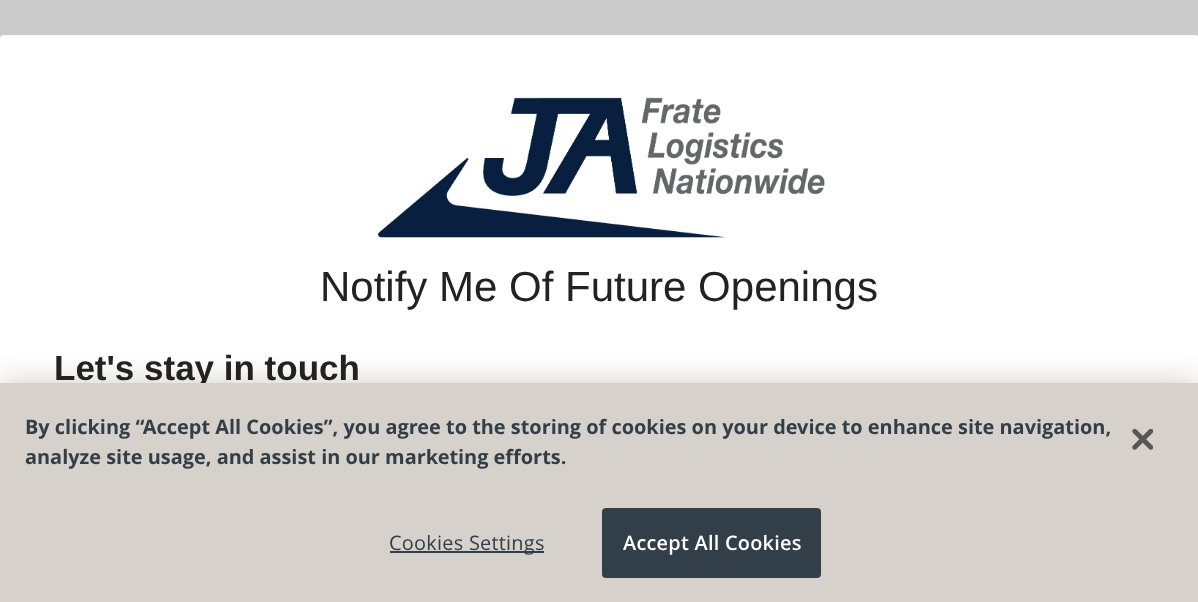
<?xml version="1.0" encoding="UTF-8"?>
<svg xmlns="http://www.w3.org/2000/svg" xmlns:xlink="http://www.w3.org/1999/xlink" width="1198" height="602">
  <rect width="100%" height="100%" fill="#cccbcb" />
  <rect y="35" width="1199" height="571" rx="4" fill="#ffffff" />
  <image x="377" y="97" width="448" height="141" xlink:href="image1.png" />
  <rect y="383" width="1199" height="219" fill="#000000" fill-opacity="0.2" filter="blur(16px)" />
  <text x="320" y="301" style="font-family: Liberation Sans; font-size: 42px; fill: #222222">Notify Me Of Future Openings</text>
  <text x="54" y="380" style="font-family: Liberation Sans; font-size: 35px; font-weight: bold; fill: #222222">Let's stay in touch</text>
  <rect y="383" width="1198" height="219" fill="#d6d1ca" />
  <text x="25" y="434" style="font-family: Open Sans; font-size: 19.92px; font-weight: bold; fill: #323e48">By clicking “Accept All Cookies”, you agree to the storing of cookies on your device to enhance site navigation,</text>
  <text x="25" y="464" style="font-family: Open Sans; font-size: 19.92px; font-weight: bold; fill: #323e48">analyze site usage, and assist in our marketing efforts.</text>
  <rect x="390" y="551" width="154" height="2" fill="#323e48" />
  <text x="389" y="550" style="font-family: Open Sans; font-size: 19.92px; letter-spacing: 0.25px; fill: #323e48">Cookies Settings</text>
  <rect x="603" y="509" width="217" height="68" rx="3" fill="#323e48" stroke="#323e48" stroke-width="2" />
  <text x="623" y="550" style="font-family: Open Sans; font-size: 19.92px; font-weight: 600; letter-spacing: 0.25px; fill: #ffffff">Accept All Cookies</text>
  <image x="1132" y="429" width="21" height="21" xlink:href="image2.png" />
</svg>
